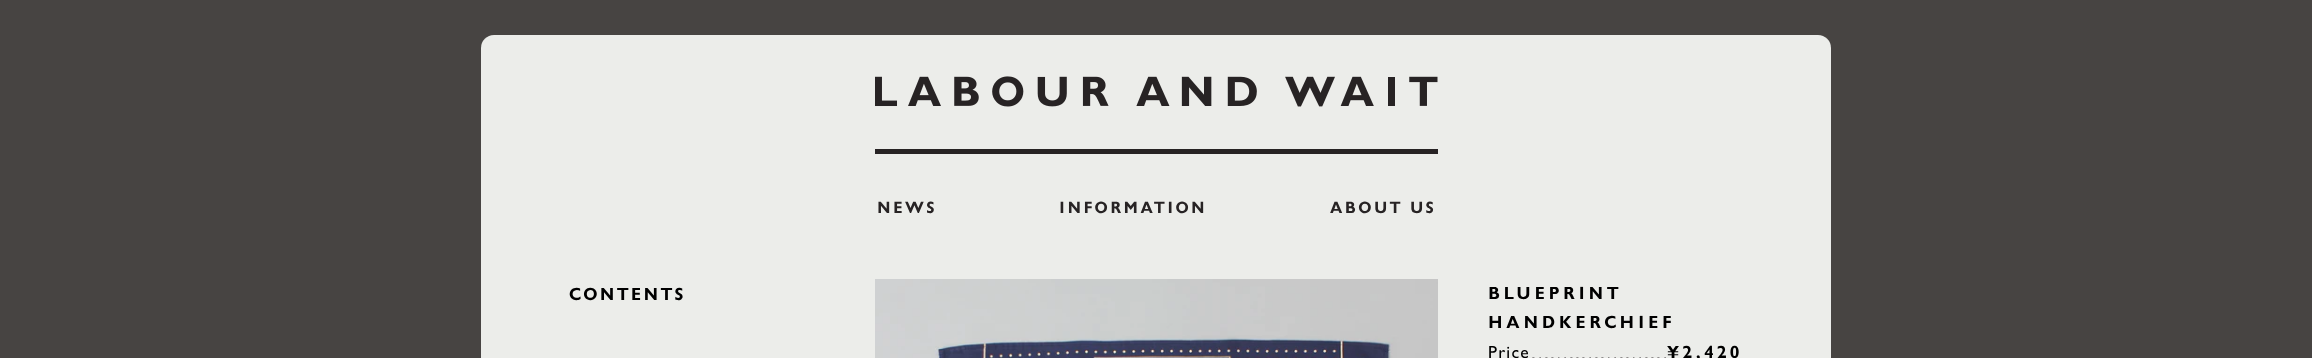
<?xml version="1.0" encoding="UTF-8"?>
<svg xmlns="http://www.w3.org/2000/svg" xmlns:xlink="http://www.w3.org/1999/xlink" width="2312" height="358">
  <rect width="100%" height="100%" fill="#474442" />
  <rect x="481" y="35" width="1350" height="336" rx="13" fill="#ecedea" />
  <image x="875" y="76" width="563" height="78" xlink:href="image1.png" />
  <image x="875" y="279" width="563" height="79" xlink:href="image2.png" />
  <image x="1532" y="357" width="134" height="1" xlink:href="image3.png" />
  <text x="877" y="213" style="font-family: 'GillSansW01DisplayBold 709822'; font-size: 16.25px; font-weight: bold; letter-spacing: 2.5px; fill: #272324">NEWS</text>
  <text x="1059" y="213" style="font-family: 'GillSansW01DisplayBold 709822'; font-size: 16.25px; font-weight: bold; letter-spacing: 2.5px; fill: #272324">INFORMATION</text>
  <text x="1330" y="213" style="font-family: 'GillSansW01DisplayBold 709822'; font-size: 16.25px; font-weight: bold; letter-spacing: 2.5px; fill: #272324">ABOUT US</text>
  <text x="569" y="300" style="font-family: 'GillSansW01DisplayBold 709822'; font-size: 17.5px; font-weight: bold; letter-spacing: 2.5px; fill: #000000">CONTENTS</text>
  <text x="1488" y="299" style="font-family: 'GillSansW01DisplayBold 709822'; font-size: 17.5px; font-weight: bold; letter-spacing: 3.75px; fill: #000000">BLUEPRINT</text>
  <text x="1488" y="328" style="font-family: 'GillSansW01DisplayBold 709822'; font-size: 17.5px; font-weight: bold; letter-spacing: 3.75px; fill: #000000">HANDKERCHIEF</text>
  <text x="1488" y="358" style="font-family: Gill Sans; font-size: 17.5px; font-weight: 500; letter-spacing: 1.25px; fill: #000000">Price</text>
  <text x="1667" y="358" style="font-family: 'GillSansW01DisplayBold 709822'; font-size: 17.5px; font-weight: bold; letter-spacing: 3.75px; fill: #000000">¥2,420</text>
</svg>
